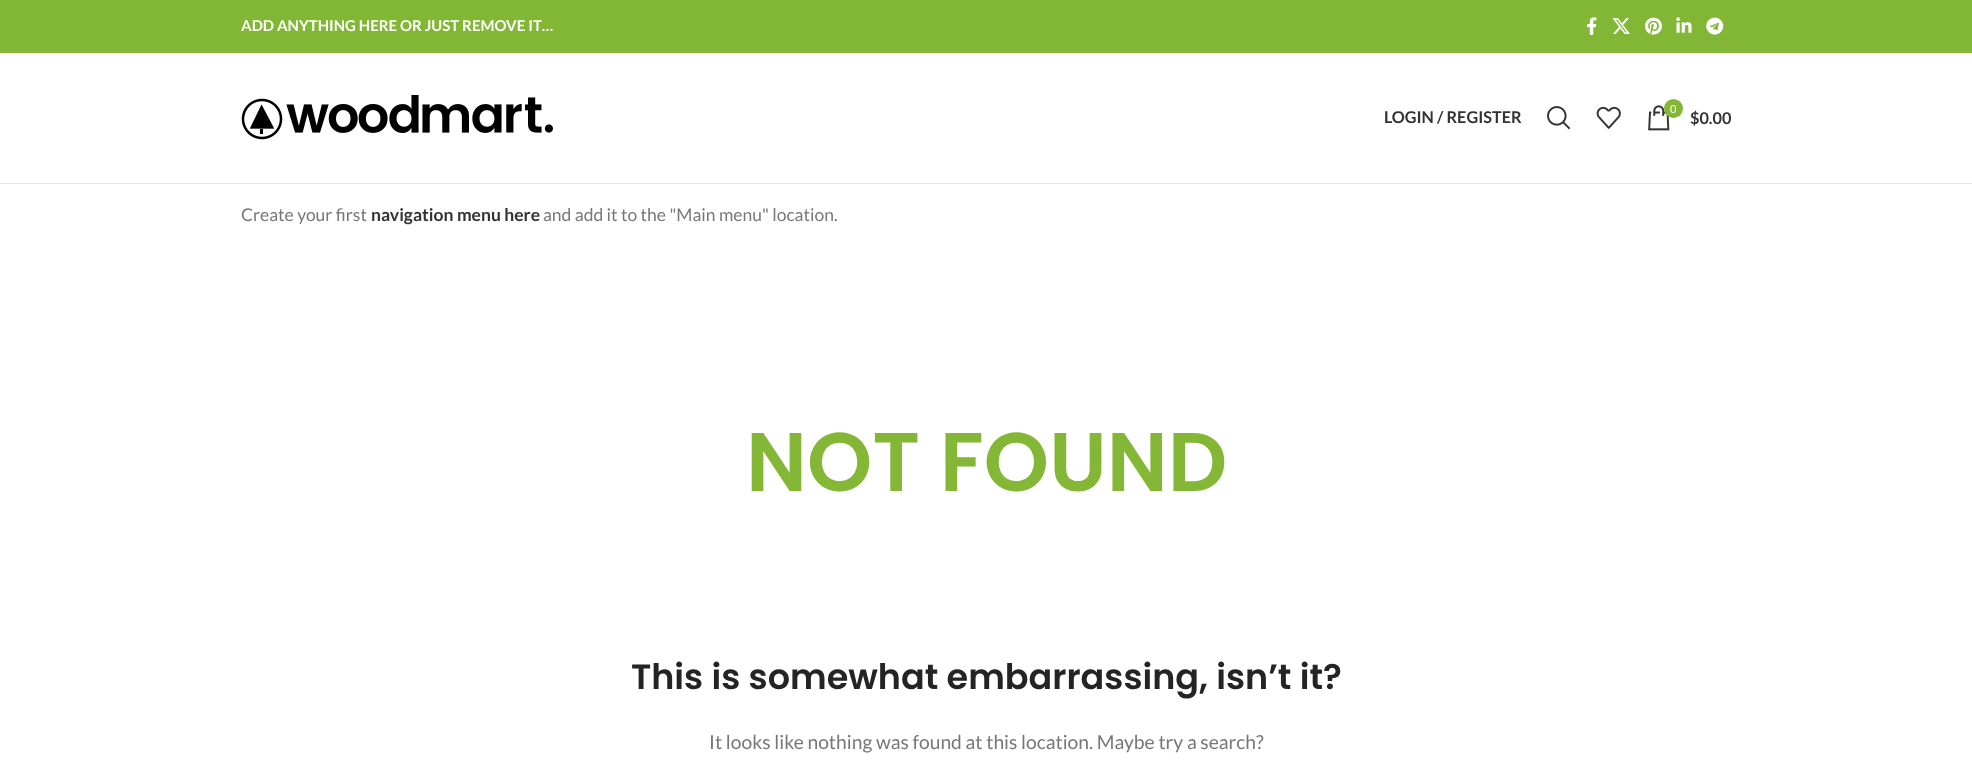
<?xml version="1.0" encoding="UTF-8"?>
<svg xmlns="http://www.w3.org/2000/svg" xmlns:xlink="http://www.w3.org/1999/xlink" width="1972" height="782">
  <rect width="100%" height="100%" fill="#ffffff" />
  <rect width="1972" height="53" fill="#82b735" />
  <image x="1587" y="17" width="10" height="18" xlink:href="image1.png" />
  <image x="1612" y="18" width="18" height="16" xlink:href="image2.png" />
  <image x="1645" y="17" width="17" height="18" xlink:href="image3.png" />
  <image x="1676" y="17" width="16" height="16" xlink:href="image4.png" />
  <image x="1706" y="17" width="18" height="18" xlink:href="image5.png" />
  <rect y="183" width="1972" height="1" fill="#e6e6e6" />
  <image x="241" y="95" width="312" height="45" xlink:href="image6.png" />
  <image x="1547" y="106" width="24" height="24" xlink:href="image7.png" />
  <image x="1596" y="106" width="25" height="23" xlink:href="image8.png" />
  <image x="1648" y="105" width="22" height="26" xlink:href="image9.png" />
  <circle cx="1673.5" cy="108.5" r="9.5" fill="#83b735" />
  <text x="241" y="31" style="font-family: Lato; font-size: 15px; font-weight: bold; fill: #ffffff">ADD ANYTHING HERE OR JUST REMOVE IT…</text>
  <text x="1384" y="123" style="font-family: Lato; font-size: 16.25px; font-weight: bold; fill: #333333">LOGIN / REGISTER</text>
  <text x="1670" y="113" style="font-family: Lato; font-size: 11px; fill: #ffffff">0</text>
  <text x="1690" y="124" style="font-family: Lato; font-size: 16.25px; font-weight: bold; fill: #333333">$0.00</text>
  <text x="241" y="221" style="font-family: Lato; font-size: 17.5px; fill: #777777">Create your first</text>
  <text x="371" y="221" style="font-family: Lato; font-size: 17.5px; font-weight: bold; fill: #333333">navigation menu here</text>
  <text x="543" y="221" style="font-family: Lato; font-size: 17.5px; fill: #777777">and add it to the "Main menu" location.</text>
  <text x="746" y="491" style="font-family: Poppins; font-size: 83px; font-weight: 600; fill: #83b735">NOT FOUND</text>
  <text x="631" y="689" style="font-family: Poppins; font-size: 35px; font-weight: 600; fill: #242424">This is somewhat embarrassing, isn’t it?</text>
  <text x="709" y="749" style="font-family: Lato; font-size: 19.25px; fill: #777777">It looks like nothing was found at this location. Maybe try a search?</text>
</svg>
